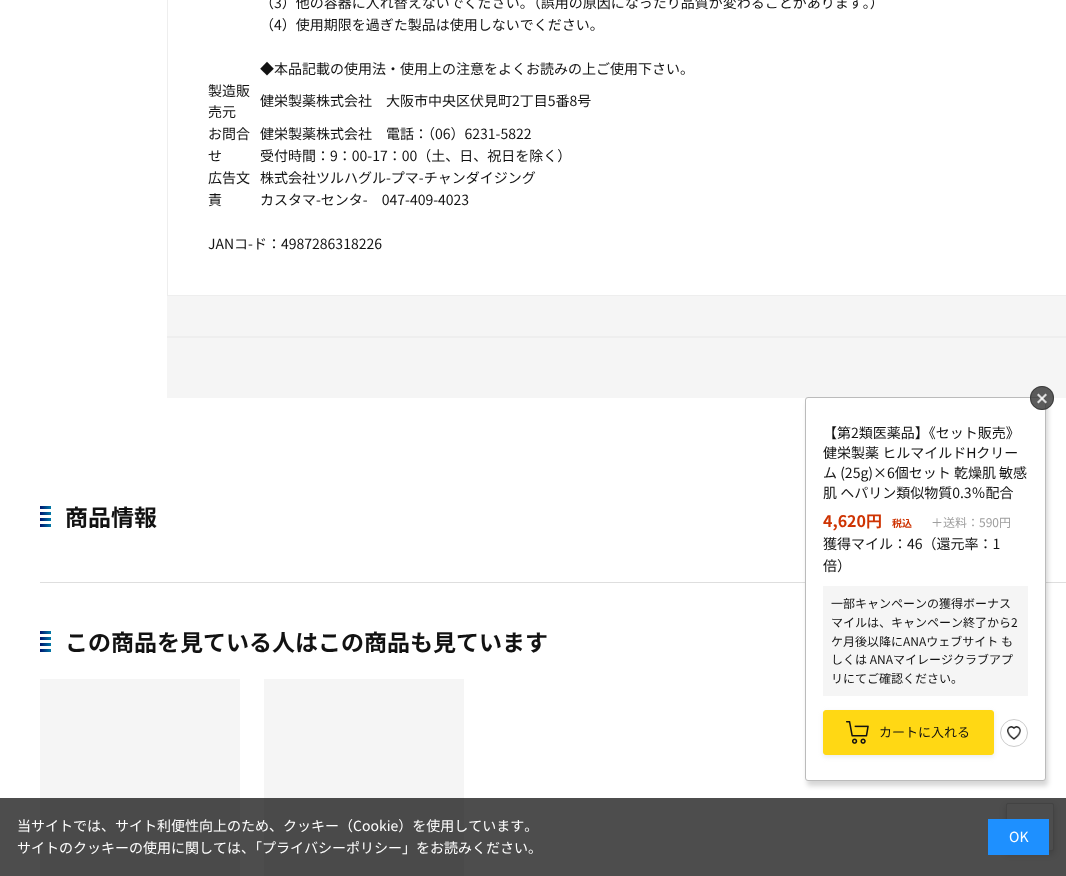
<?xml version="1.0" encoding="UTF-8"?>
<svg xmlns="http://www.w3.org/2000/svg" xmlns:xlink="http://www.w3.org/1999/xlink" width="1066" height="876">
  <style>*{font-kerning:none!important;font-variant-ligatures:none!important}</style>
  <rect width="100%" height="100%" fill="#ffffff" />
  <rect y="798" width="1066" height="78" fill="#4d4d4d" />
  <rect x="167" y="296" width="899" height="102" fill="#f5f5f5" />
  <rect x="167.5" y="-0.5" width="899" height="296" fill="none" stroke="#eeeeee" />
  <rect x="167" y="336" width="899" height="2" fill="#eeeeee" />
  <image x="40" y="506" width="11" height="21" xlink:href="image1.png" />
  <rect x="40" y="582" width="1026" height="1" fill="#dedede" />
  <image x="40" y="631" width="11" height="21" xlink:href="image1.png" />
  <rect x="40" y="679" width="200" height="119" fill="#f5f5f5" />
  <rect x="40" y="798" width="200" height="78" fill="#4a4a4a" />
  <rect x="264" y="679" width="200" height="119" fill="#f5f5f5" />
  <rect x="264" y="798" width="200" height="78" fill="#4a4a4a" />
  <rect x="807" y="402" width="241" height="384" rx="3" fill="#000000" fill-opacity="0.16" filter="blur(2.5px)" />
  <rect x="805.5" y="397.5" width="240" height="383" rx="2.5" fill="#ffffff" stroke="#bbbbbb" />
  <circle cx="1042" cy="398" r="12" fill="#333333" fill-opacity="0.8" />
  <circle cx="1042" cy="398" r="11.5" fill="none" stroke="#333333" stroke-opacity="0.8" />
  <path d="M 1038.5 393.5 l 8.5 8.5 l -1.5 1.5 l -8.5 -8.5 z" fill="#ffffff" fill-opacity="0.8" />
  <path d="M 1037 402 l 8.5 -8.5 l 1.5 1.5 l -8.5 8.5 z" fill="#ffffff" fill-opacity="0.8" />
  <rect x="823" y="586" width="205" height="110" fill="#f5f5f5" />
  <rect x="823" y="712" width="171" height="45" rx="3" fill="#d5d9d9" fill-opacity="0.5" filter="blur(2.5px)" />
  <rect x="823.5" y="710.5" width="170" height="44" rx="2.5" fill="#ffd814" stroke="#ffd814" />
  <image x="846" y="721" width="23" height="23" xlink:href="image2.png" />
  <circle cx="1014" cy="733" r="13.5" fill="none" stroke="#cccccc" />
  <image x="1007" y="726" width="14" height="14" xlink:href="image3.png" />
  <rect x="1006" y="806" width="48" height="48" rx="2" fill="#000000" fill-opacity="0.16" filter="blur(3px)" />
  <rect x="1006.5" y="803.5" width="47" height="47" rx="1.5" fill="#4d4d4d" stroke="#434343" />
  <rect x="988" y="819" width="61" height="36" fill="#1e90ff" />
  <text x="260" y="8" style="font-family: Noto Sans JP; font-size: 14px; fill: #121212">（3）他の容器に入れ替えないでください。（誤用の原因になったり品質が変わることがあります。）</text>
  <text x="260" y="30" style="font-family: Noto Sans JP; font-size: 14px; fill: #121212">（4）使用期限を過ぎた製品は使用しないでください。</text>
  <text x="260" y="74" style="font-family: Noto Sans JP; font-size: 14px; fill: #121212">◆本品記載の使用法・使用上の注意をよくお読みの上ご使用下さい。</text>
  <text x="208" y="96" style="font-family: Noto Sans JP; font-size: 14px; fill: #121212">製造販</text>
  <text x="208" y="117" style="font-family: Noto Sans JP; font-size: 14px; fill: #121212">売元</text>
  <text x="260" y="106" style="font-family: Noto Sans JP; font-size: 14px; fill: #121212">健栄製薬株式会社　大阪市中央区伏見町2丁目5番8号</text>
  <text x="208" y="139" style="font-family: Noto Sans JP; font-size: 14px; fill: #121212">お問合</text>
  <text x="208" y="161" style="font-family: Noto Sans JP; font-size: 14px; fill: #121212">せ</text>
  <text x="260" y="139" style="font-family: Noto Sans JP; font-size: 14px; fill: #121212">健栄製薬株式会社　電話：（06）6231-5822</text>
  <text x="260" y="161" style="font-family: Noto Sans JP; font-size: 14px; fill: #121212">受付時間：9：00-17：00（土、日、祝日を除く）</text>
  <text x="208" y="183" style="font-family: Noto Sans JP; font-size: 14px; fill: #121212">広告文</text>
  <text x="208" y="205" style="font-family: Noto Sans JP; font-size: 14px; fill: #121212">責</text>
  <text x="260" y="183" style="font-family: Noto Sans JP; font-size: 14px; fill: #121212">株式会社ツルハグル-プマ-チャンダイジング</text>
  <text x="260" y="205" style="font-family: Noto Sans JP; font-size: 14px; fill: #121212">カスタマ-センタ-　047-409-4023</text>
  <text x="208" y="249" style="font-family: Noto Sans JP; font-size: 14px; fill: #121212">JANコ-ド：4987286318226</text>
  <text x="65" y="526" style="font-family: Noto Sans JP; font-size: 23px; font-weight: bold; fill: #121212">商品情報</text>
  <text x="65" y="651" style="font-family: Noto Sans JP; font-size: 23px; font-weight: bold; fill: #121212">この商品を見ている人はこの商品も見ています</text>
  <text x="823" y="438" style="font-family: Noto Sans JP; font-size: 14px; fill: #121212">【第2類医薬品】《セット販売》</text>
  <text x="823" y="458" style="font-family: Noto Sans JP; font-size: 14px; fill: #121212">健栄製薬 ヒルマイルドHクリー</text>
  <text x="823" y="478" style="font-family: Noto Sans JP; font-size: 14px; fill: #121212">ム (25g)×6個セット 乾燥肌 敏感</text>
  <text x="823" y="498" style="font-family: Noto Sans JP; font-size: 14px; fill: #121212">肌 ヘパリン類似物質0.3％配合</text>
  <text x="823" y="527" style="font-family: Noto Sans JP; font-size: 16px; font-weight: bold; fill: #ce3302">4,620円</text>
  <text x="892" y="527" style="font-family: Noto Sans JP; font-size: 10px; font-weight: bold; fill: #ce3302">税込</text>
  <text x="931" y="527" style="font-family: Noto Sans JP; font-size: 12px; fill: #9e9e9e">＋送料：590円</text>
  <text x="823" y="549" style="font-family: Noto Sans JP; font-size: 14px; fill: #121212">獲得マイル：46（還元率：1</text>
  <text x="823" y="571" style="font-family: Noto Sans JP; font-size: 14px; fill: #121212">倍）</text>
  <text x="831" y="608" style="font-family: Noto Sans JP; font-size: 12px; fill: #121212">一部キャンペーンの獲得ボーナス</text>
  <text x="831" y="627" style="font-family: Noto Sans JP; font-size: 12px; fill: #121212">マイルは、キャンペーン終了から2</text>
  <text x="831" y="646" style="font-family: Noto Sans JP; font-size: 12px; fill: #121212">ケ月後以降にANAウェブサイト も</text>
  <text x="831" y="664" style="font-family: Noto Sans JP; font-size: 12px; fill: #121212">しくは ANAマイレージクラブアプ</text>
  <text x="831" y="683" style="font-family: Noto Sans JP; font-size: 12px; fill: #121212">リにてご確認ください。</text>
  <text x="879" y="737" style="font-family: Noto Sans JP; font-size: 13px; fill: #121212">カートに入れる</text>
  <text x="17" y="831" style="font-family: Noto Sans JP; font-size: 14px; fill: #ffffff">当サイトでは、サイト利便性向上のため、クッキー（Cookie）を使用しています。</text>
  <text x="17" y="853" style="font-family: Noto Sans JP; font-size: 14px; fill: #ffffff">サイトのクッキーの使用に関しては、「プライバシーポリシー」をお読みください。</text>
  <text x="1009" y="842" style="font-family: Noto Sans JP; font-size: 14px; fill: #ffffff">OK</text>
</svg>
